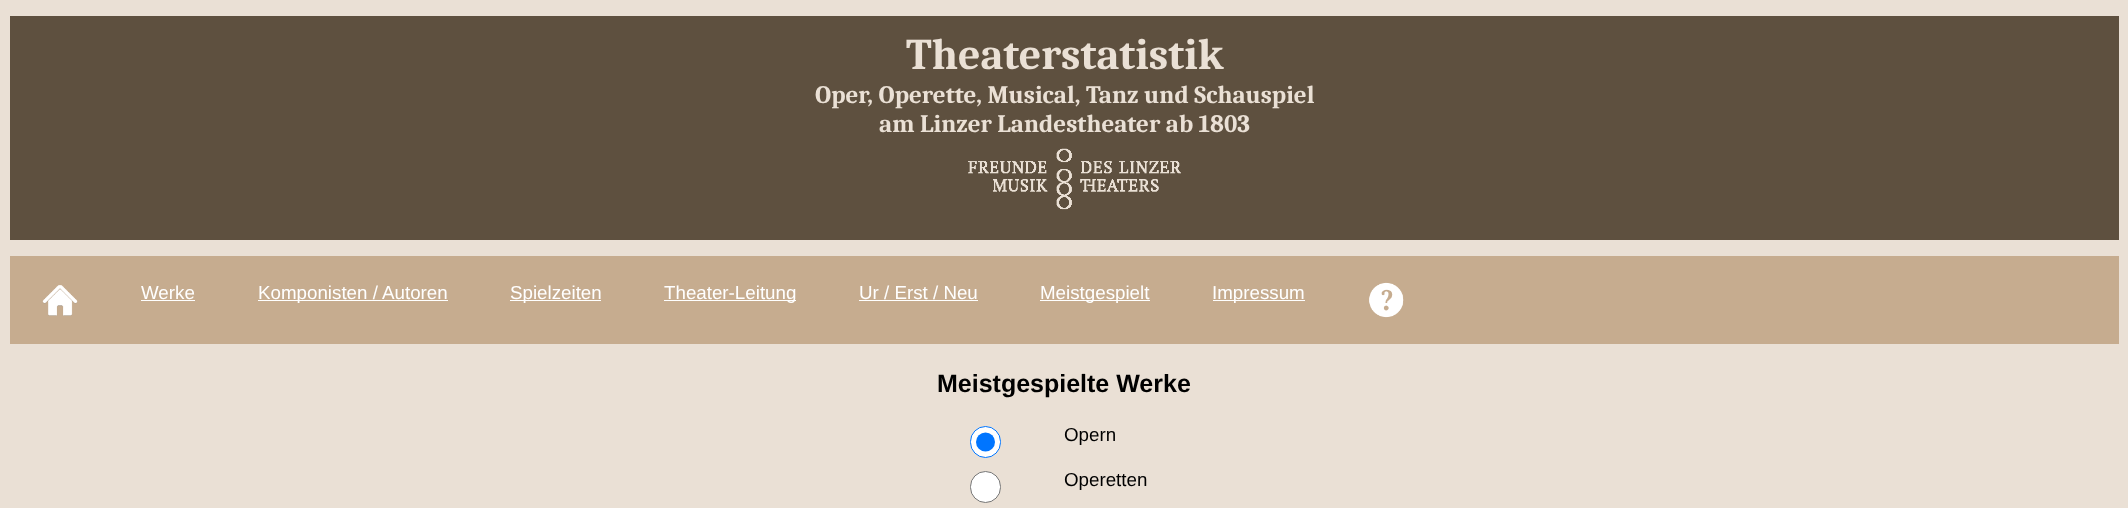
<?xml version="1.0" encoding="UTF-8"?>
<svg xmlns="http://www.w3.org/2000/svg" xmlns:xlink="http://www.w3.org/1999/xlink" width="2128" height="508">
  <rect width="100%" height="100%" fill="#eae0d5" />
  <rect x="10" y="16" width="2109" height="224" fill="#5e503f" />
  <image x="968" y="148" width="213" height="62" xlink:href="image1.png" />
  <rect x="10" y="256" width="2109" height="88" fill="#c6ac8f" />
  <image x="42" y="285" width="36" height="31" xlink:href="image2.png" />
  <rect x="141" y="300" width="54" height="1" fill="#ffffff" />
  <rect x="258" y="300" width="190" height="1" fill="#ffffff" />
  <rect x="510" y="300" width="91" height="1" fill="#ffffff" />
  <rect x="664" y="300" width="132" height="1" fill="#ffffff" />
  <rect x="859" y="300" width="119" height="1" fill="#ffffff" />
  <rect x="1040" y="300" width="110" height="1" fill="#ffffff" />
  <rect x="1213" y="300" width="92" height="1" fill="#ffffff" />
  <image x="1369" y="282" width="35" height="36" xlink:href="image3.png" />
  <rect x="970.5" y="426.5" width="30" height="31" rx="15" fill="#ffffff" stroke="#0075ff" />
  <circle cx="985.5" cy="442" r="9.5" fill="#0075ff" />
  <rect x="970.5" y="471.5" width="30" height="31" rx="15" fill="#ffffff" stroke="#767676" />
  <text x="906" y="69" style="font-family: Caladea; font-size: 43.75px; font-weight: bold; fill: #eae0d5">Theaterstatistik</text>
  <text x="815" y="103" style="font-family: Caladea; font-size: 25px; font-weight: bold; fill: #eae0d5">Oper, Operette, Musical, Tanz und Schauspiel</text>
  <text x="879" y="132" style="font-family: Caladea; font-size: 25px; font-weight: bold; fill: #eae0d5">am Linzer Landestheater ab 1803</text>
  <text x="141" y="299" style="font-family: Liberation Sans; font-size: 18.75px; fill: #ffffff">Werke</text>
  <text x="258" y="299" style="font-family: Liberation Sans; font-size: 18.75px; fill: #ffffff">Komponisten / Autoren</text>
  <text x="510" y="299" style="font-family: Liberation Sans; font-size: 18.75px; fill: #ffffff">Spielzeiten</text>
  <text x="664" y="299" style="font-family: Liberation Sans; font-size: 18.75px; fill: #ffffff">Theater-Leitung</text>
  <text x="859" y="299" style="font-family: Liberation Sans; font-size: 18.75px; fill: #ffffff">Ur / Erst / Neu</text>
  <text x="1040" y="299" style="font-family: Liberation Sans; font-size: 18.75px; fill: #ffffff">Meistgespielt</text>
  <text x="1212" y="299" style="font-family: Liberation Sans; font-size: 18.75px; fill: #ffffff">Impressum</text>
  <text x="937" y="392" style="font-family: Liberation Sans; font-size: 25px; font-weight: bold; fill: #000000">Meistgespielte Werke</text>
  <text x="1064" y="441" style="font-family: Liberation Sans; font-size: 18.75px; fill: #000000">Opern</text>
  <text x="1064" y="486" style="font-family: Liberation Sans; font-size: 18.75px; fill: #000000">Operetten</text>
</svg>
